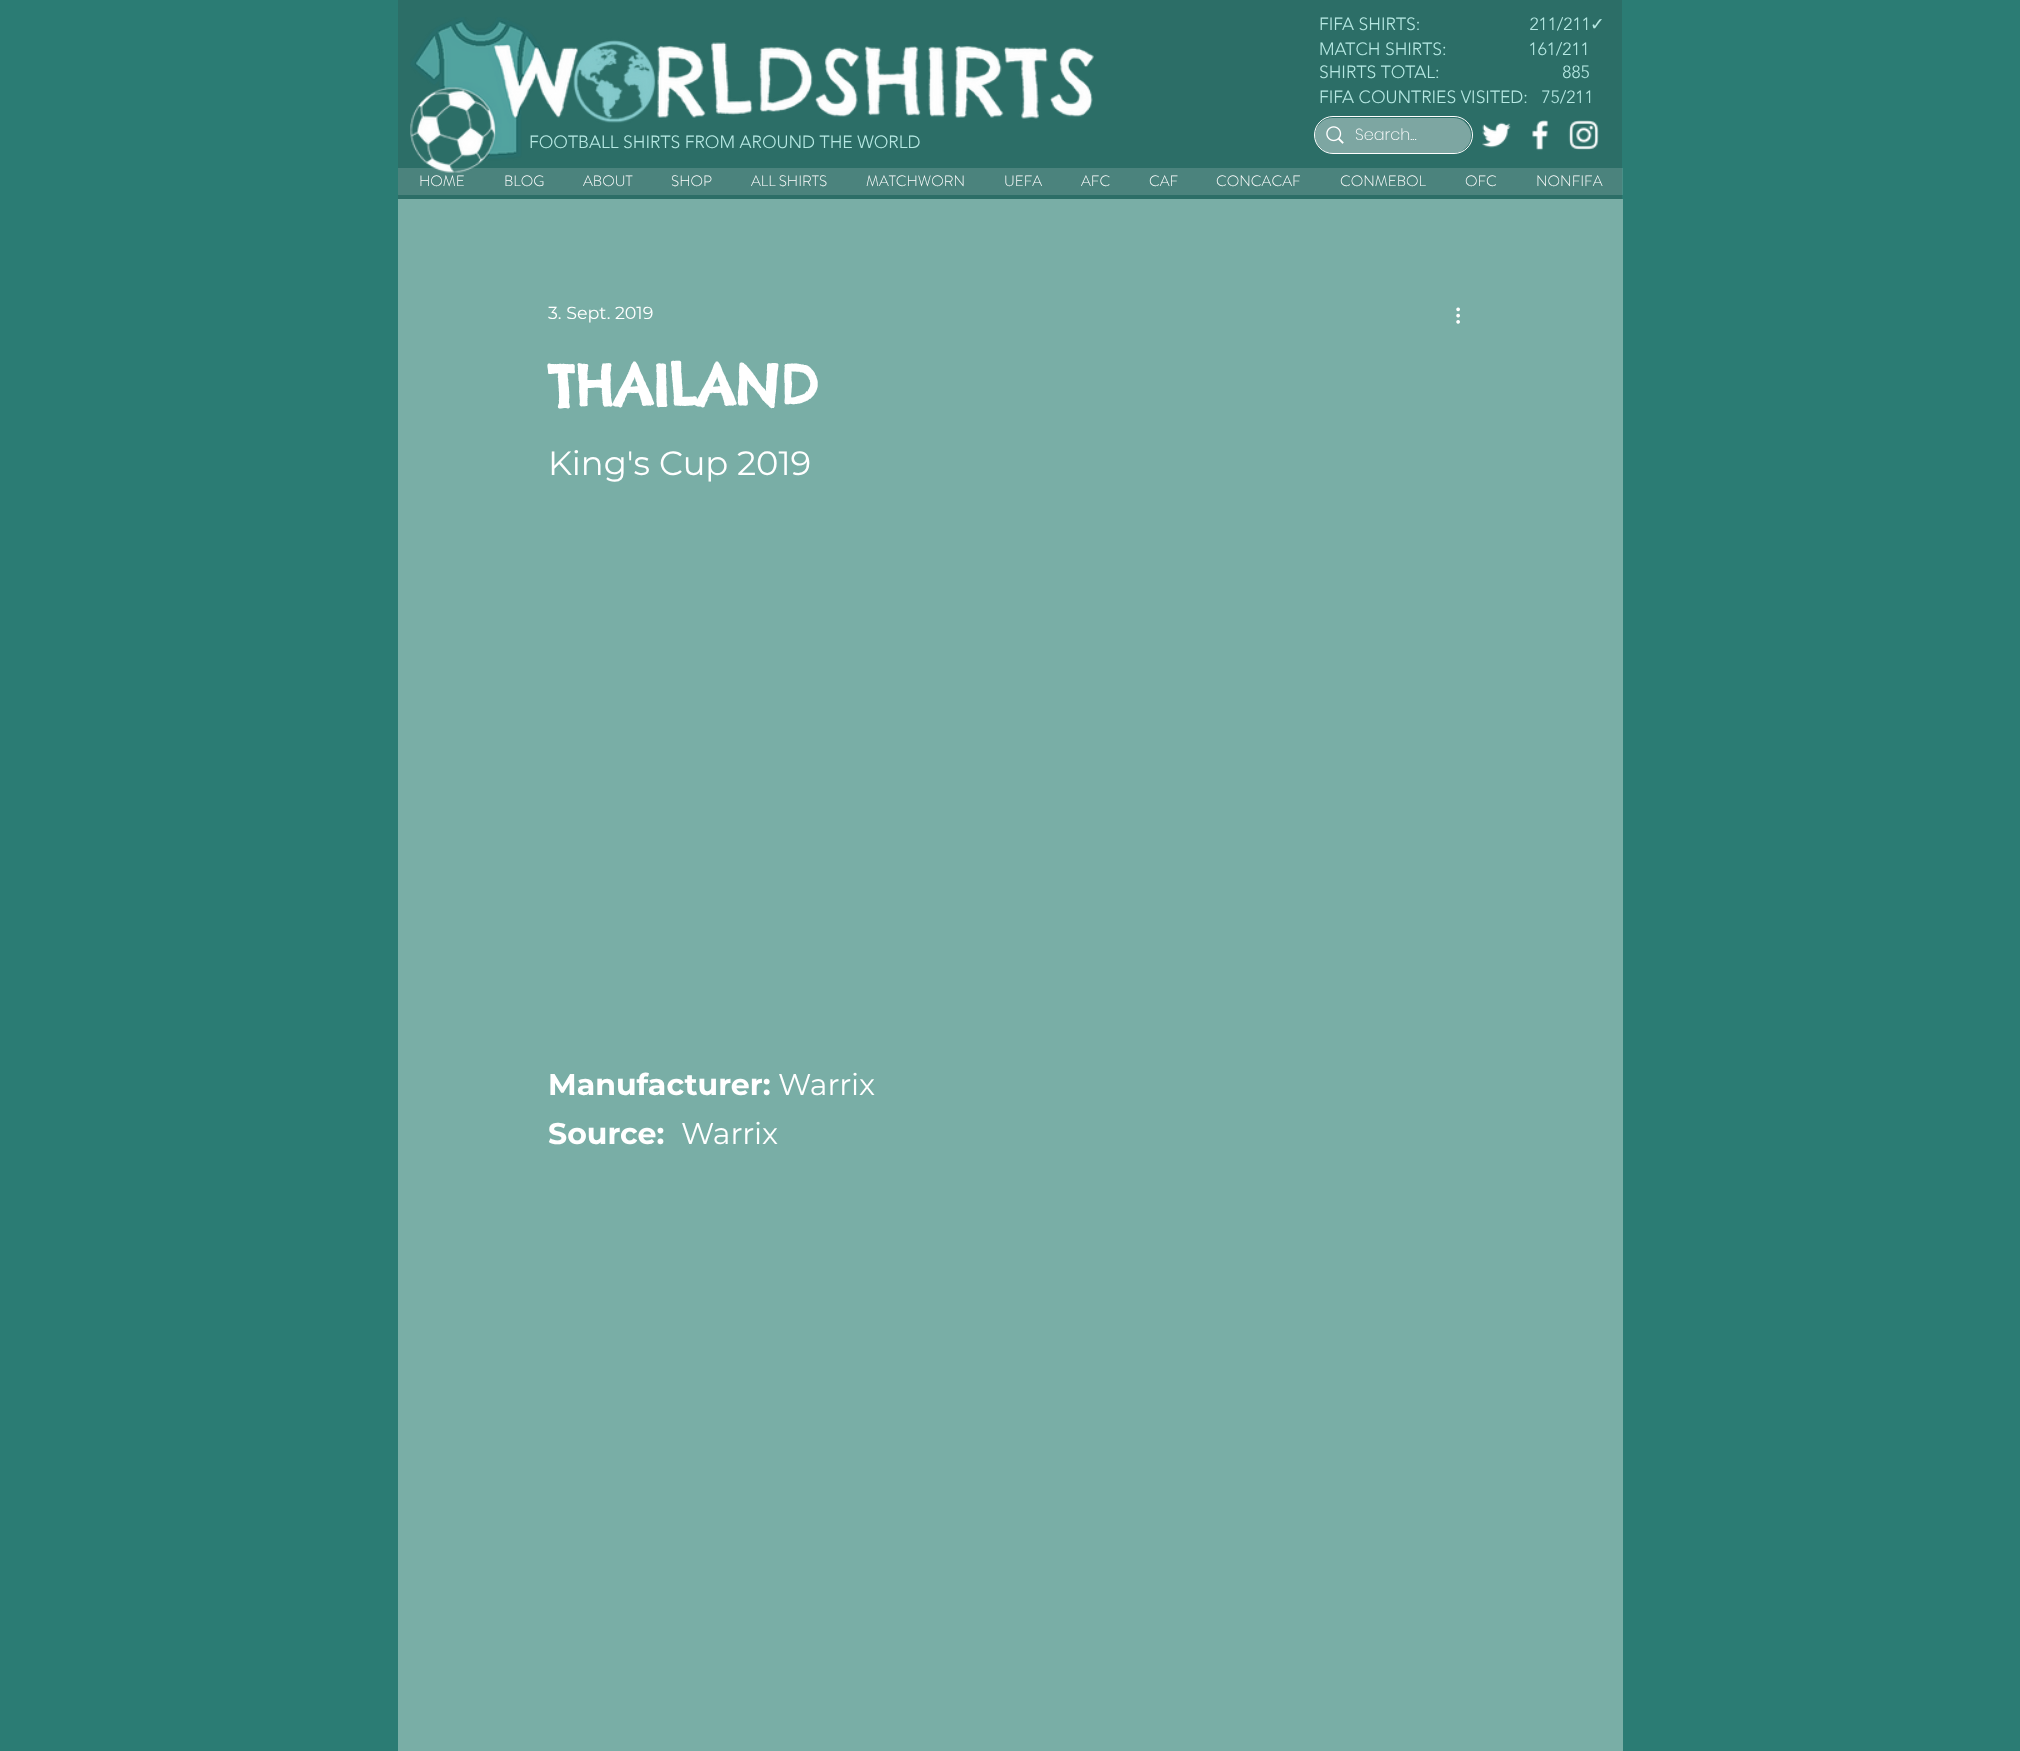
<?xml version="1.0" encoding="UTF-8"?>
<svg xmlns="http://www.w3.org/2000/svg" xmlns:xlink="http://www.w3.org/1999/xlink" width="2020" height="1751">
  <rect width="100%" height="100%" fill="#2b7c74" />
  <rect x="398" width="1224" height="199" fill="#2c6e67" />
  <rect x="1314.5" y="116.5" width="158" height="37" rx="18.5" fill="none" stroke="#ffffff" />
  <rect x="1315" y="118" width="156" height="35" rx="17.5" fill="#ffffff" fill-opacity="0.39" />
  <image x="1326" y="126" width="18" height="18" xlink:href="image2.png" />
  <image x="1482" y="122" width="29" height="26" xlink:href="image3.png" />
  <image x="1532" y="120" width="17" height="31" xlink:href="image4.png" />
  <image x="1568" y="120" width="31" height="30" xlink:href="image5.png" />
  <rect x="398" y="199" width="1225" height="1552" fill="#79aea6" />
  <image x="1456" y="307" width="4" height="17" xlink:href="image6.png" />
  <text x="1319" y="30" style="font-family: 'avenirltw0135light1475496'; font-size: 17.5px; font-weight: 300; fill: #b6e8e3" xml:space="preserve">FIFA SHIRTS:                        211/211</text>
  <text x="1590" y="30" style="font-family: DejaVu Sans; font-size: 17.5px; fill: #b6e8e3">✓</text>
  <text x="1319" y="55" style="font-family: 'avenirltw0135light1475496'; font-size: 17.5px; font-weight: 300; fill: #b6e8e3" xml:space="preserve">MATCH SHIRTS:                  161/211</text>
  <text x="1319" y="78" style="font-family: 'avenirltw0135light1475496'; font-size: 17.5px; font-weight: 300; fill: #b6e8e3" xml:space="preserve">SHIRTS TOTAL:                           885</text>
  <text x="1319" y="103" style="font-family: 'avenirltw0135light1475496'; font-size: 17.5px; font-weight: 300; fill: #b6e8e3" xml:space="preserve">FIFA COUNTRIES VISITED:   75/211</text>
  <text x="529" y="148" style="font-family: 'avenirltw0135light1475496'; font-size: 17.5px; font-weight: 300; fill: #b6e8e3">FOOTBALL SHIRTS FROM AROUND THE WORLD</text>
  <image x="410" y="17" width="684" height="156" xlink:href="image1.png" />
  <text x="1355" y="140" style="font-family: Poppins; font-size: 16px; font-weight: 200; fill: #ffffff">Search...</text>
  <rect x="398" y="168" width="1225" height="27" fill="#ffffff" fill-opacity="0.15" />
  <text x="419" y="186" style="font-family: 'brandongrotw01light'; font-size: 15px; font-weight: 300; fill: #ffffff">HOME</text>
  <text x="504" y="186" style="font-family: 'brandongrotw01light'; font-size: 15px; font-weight: 300; fill: #ffffff">BLOG</text>
  <text x="583" y="186" style="font-family: 'brandongrotw01light'; font-size: 15px; font-weight: 300; fill: #ffffff">ABOUT</text>
  <text x="671" y="186" style="font-family: 'brandongrotw01light'; font-size: 15px; font-weight: 300; fill: #ffffff">SHOP</text>
  <text x="751" y="186" style="font-family: 'brandongrotw01light'; font-size: 15px; font-weight: 300; fill: #ffffff">ALL SHIRTS</text>
  <text x="866" y="186" style="font-family: 'brandongrotw01light'; font-size: 15px; font-weight: 300; fill: #ffffff">MATCHWORN</text>
  <text x="1004" y="186" style="font-family: 'brandongrotw01light'; font-size: 15px; font-weight: 300; fill: #ffffff">UEFA</text>
  <text x="1081" y="186" style="font-family: 'brandongrotw01light'; font-size: 15px; font-weight: 300; fill: #ffffff">AFC</text>
  <text x="1149" y="186" style="font-family: 'brandongrotw01light'; font-size: 15px; font-weight: 300; fill: #ffffff">CAF</text>
  <text x="1216" y="186" style="font-family: 'brandongrotw01light'; font-size: 15px; font-weight: 300; fill: #ffffff">CONCACAF</text>
  <text x="1340" y="186" style="font-family: 'brandongrotw01light'; font-size: 15px; font-weight: 300; fill: #ffffff">CONMEBOL</text>
  <text x="1465" y="186" style="font-family: 'brandongrotw01light'; font-size: 15px; font-weight: 300; fill: #ffffff">OFC</text>
  <text x="1536" y="186" style="font-family: 'brandongrotw01light'; font-size: 15px; font-weight: 300; fill: #ffffff">NONFIFA</text>
  <text x="548" y="319" style="font-family: Montserrat; font-size: 17.5px; fill: #ffffff">3. Sept. 2019</text>
  <text x="548" y="406" style="font-family: Chelsea Market; font-size: 56.25px; font-weight: bold; fill: #ffffff">THAILAND</text>
  <text x="548" y="475" style="font-family: Montserrat; font-size: 33.75px; fill: #ffffff">King's Cup 2019</text>
  <text x="548" y="1095" style="font-family: Montserrat; font-size: 30px; font-weight: bold; fill: #ffffff">Manufacturer:</text>
  <text x="778" y="1095" style="font-family: Montserrat; font-size: 30px; fill: #ffffff">Warrix</text>
  <text x="548" y="1144" style="font-family: Montserrat; font-size: 30px; font-weight: bold; fill: #ffffff">Source:</text>
  <text x="681" y="1144" style="font-family: Montserrat; font-size: 30px; fill: #ffffff">Warrix</text>
</svg>
